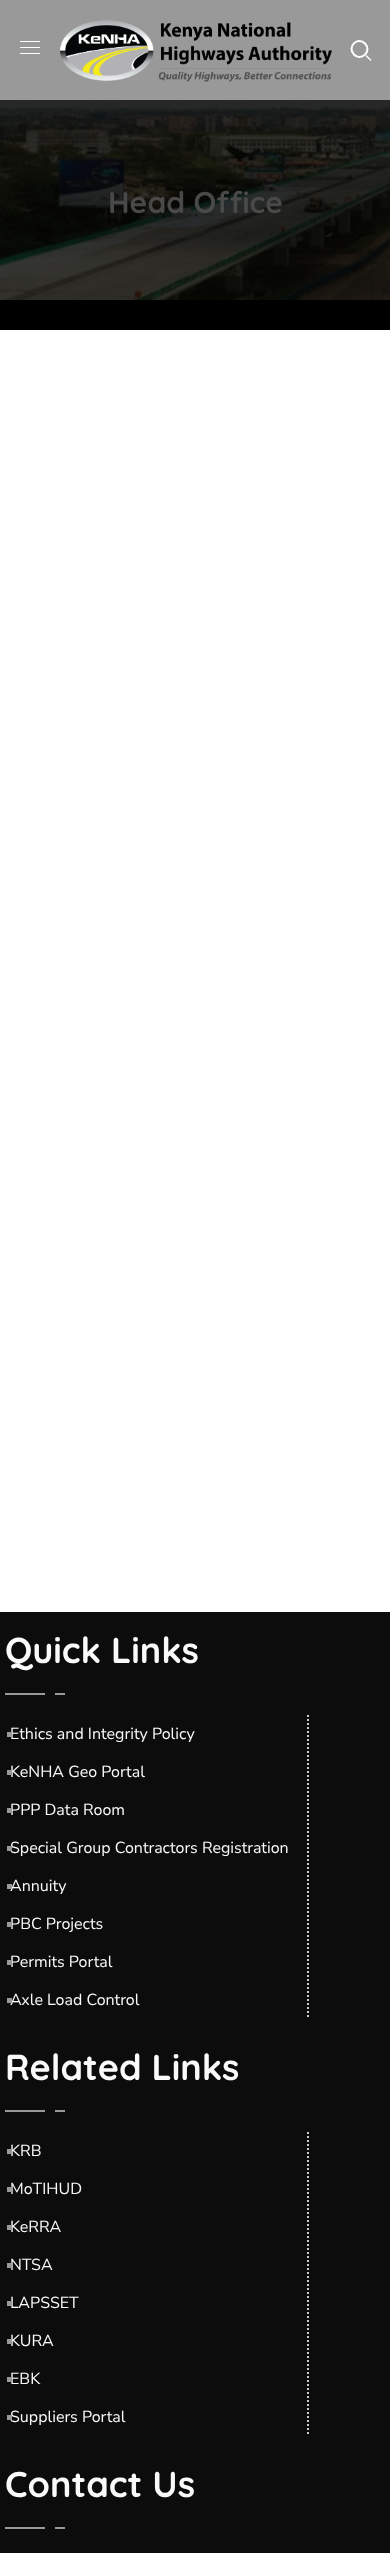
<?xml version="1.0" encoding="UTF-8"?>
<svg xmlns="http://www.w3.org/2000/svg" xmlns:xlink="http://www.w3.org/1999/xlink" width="390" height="2553">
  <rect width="100%" height="100%" fill="#ffffff" />
  <rect width="390" height="100" fill="#999999" />
  <rect x="20" y="41" width="20" height="1" fill="#ffffff" />
  <rect x="20" y="47" width="20" height="1" fill="#ffffff" />
  <rect x="20" y="53" width="20" height="1" fill="#ffffff" />
  <image x="60" y="20" width="272" height="62" xlink:href="image1.png" />
  <path d="M 365 43.5 c 7.5 7.5 -4 18.5 -11 11 c -7.5 -7.5 3.5 -18.5 11 -11 z" fill="none" stroke="#ffffff" stroke-width="2" />
  <path d="M 365.5 56 l 1 -1 l 5 5 l -1 1 z" fill="#ffffff" />
  <rect y="300" width="390" height="30" fill="#000000" />
  <image x="0" y="100" width="390" height="200" xlink:href="image2.png" />
  <rect y="1612" width="390" height="941" fill="#0c0c0c" />
  <rect x="55" y="1693" width="10" height="2" fill="#999999" />
  <rect x="5" y="1693" width="40" height="2" fill="#999999" />
  <path d="M 308 1715 v 304" fill="none" stroke="#cccccc" stroke-width="2" stroke-dasharray="2 2" />
  <rect x="55" y="2110" width="10" height="2" fill="#999999" />
  <rect x="5" y="2110" width="40" height="2" fill="#999999" />
  <path d="M 308 2132 v 304" fill="none" stroke="#cccccc" stroke-width="2" stroke-dasharray="2 2" />
  <rect x="55" y="2527" width="10" height="2" fill="#999999" />
  <rect x="5" y="2527" width="40" height="2" fill="#999999" />
  <text x="108" y="213" style="font-family: Quicksand; font-size: 30px; font-weight: bold; fill: #494949">Head Office</text>
  <text x="5" y="1663" style="font-family: Quicksand; font-size: 36px; font-weight: bold; fill: #fafafa">Quick Links</text>
  <text x="10" y="1739" style="font-family: Nunito Sans; font-size: 16px; fill: #fafafa">Ethics and Integrity Policy</text>
  <rect x="7" y="1732" width="5" height="5" fill="#999999" />
  <text x="10" y="1777" style="font-family: Nunito Sans; font-size: 16px; fill: #fafafa">KeNHA Geo Portal</text>
  <rect x="7" y="1770" width="5" height="5" fill="#999999" />
  <text x="10" y="1815" style="font-family: Nunito Sans; font-size: 16px; fill: #fafafa">PPP Data Room</text>
  <rect x="7" y="1808" width="5" height="5" fill="#999999" />
  <text x="10" y="1853" style="font-family: Nunito Sans; font-size: 16px; fill: #fafafa">Special Group Contractors Registration</text>
  <rect x="7" y="1846" width="5" height="5" fill="#999999" />
  <text x="10" y="1891" style="font-family: Nunito Sans; font-size: 16px; fill: #fafafa">Annuity</text>
  <rect x="7" y="1884" width="5" height="5" fill="#999999" />
  <text x="10" y="1929" style="font-family: Nunito Sans; font-size: 16px; fill: #fafafa">PBC Projects</text>
  <rect x="7" y="1922" width="5" height="5" fill="#999999" />
  <text x="10" y="1967" style="font-family: Nunito Sans; font-size: 16px; fill: #fafafa">Permits Portal</text>
  <rect x="7" y="1960" width="5" height="5" fill="#999999" />
  <text x="10" y="2005" style="font-family: Nunito Sans; font-size: 16px; fill: #fafafa">Axle Load Control</text>
  <rect x="7" y="1998" width="5" height="5" fill="#999999" />
  <text x="5" y="2080" style="font-family: Quicksand; font-size: 36px; font-weight: bold; fill: #fafafa">Related Links</text>
  <text x="10" y="2156" style="font-family: Nunito Sans; font-size: 16px; fill: #fafafa">KRB</text>
  <rect x="7" y="2149" width="5" height="5" fill="#999999" />
  <text x="10" y="2194" style="font-family: Nunito Sans; font-size: 16px; fill: #fafafa">MoTIHUD</text>
  <rect x="7" y="2187" width="5" height="5" fill="#999999" />
  <text x="10" y="2232" style="font-family: Nunito Sans; font-size: 16px; fill: #fafafa">KeRRA</text>
  <rect x="7" y="2225" width="5" height="5" fill="#999999" />
  <text x="10" y="2270" style="font-family: Nunito Sans; font-size: 16px; fill: #fafafa">NTSA</text>
  <rect x="7" y="2263" width="5" height="5" fill="#999999" />
  <text x="10" y="2308" style="font-family: Nunito Sans; font-size: 16px; fill: #fafafa">LAPSSET</text>
  <rect x="7" y="2301" width="5" height="5" fill="#999999" />
  <text x="10" y="2346" style="font-family: Nunito Sans; font-size: 16px; fill: #fafafa">KURA</text>
  <rect x="7" y="2339" width="5" height="5" fill="#999999" />
  <text x="10" y="2384" style="font-family: Nunito Sans; font-size: 16px; fill: #fafafa">EBK</text>
  <rect x="7" y="2377" width="5" height="5" fill="#999999" />
  <text x="10" y="2422" style="font-family: Nunito Sans; font-size: 16px; fill: #fafafa">Suppliers Portal</text>
  <rect x="7" y="2415" width="5" height="5" fill="#999999" />
  <text x="5" y="2497" style="font-family: Quicksand; font-size: 36px; font-weight: bold; fill: #fafafa">Contact Us</text>
</svg>
